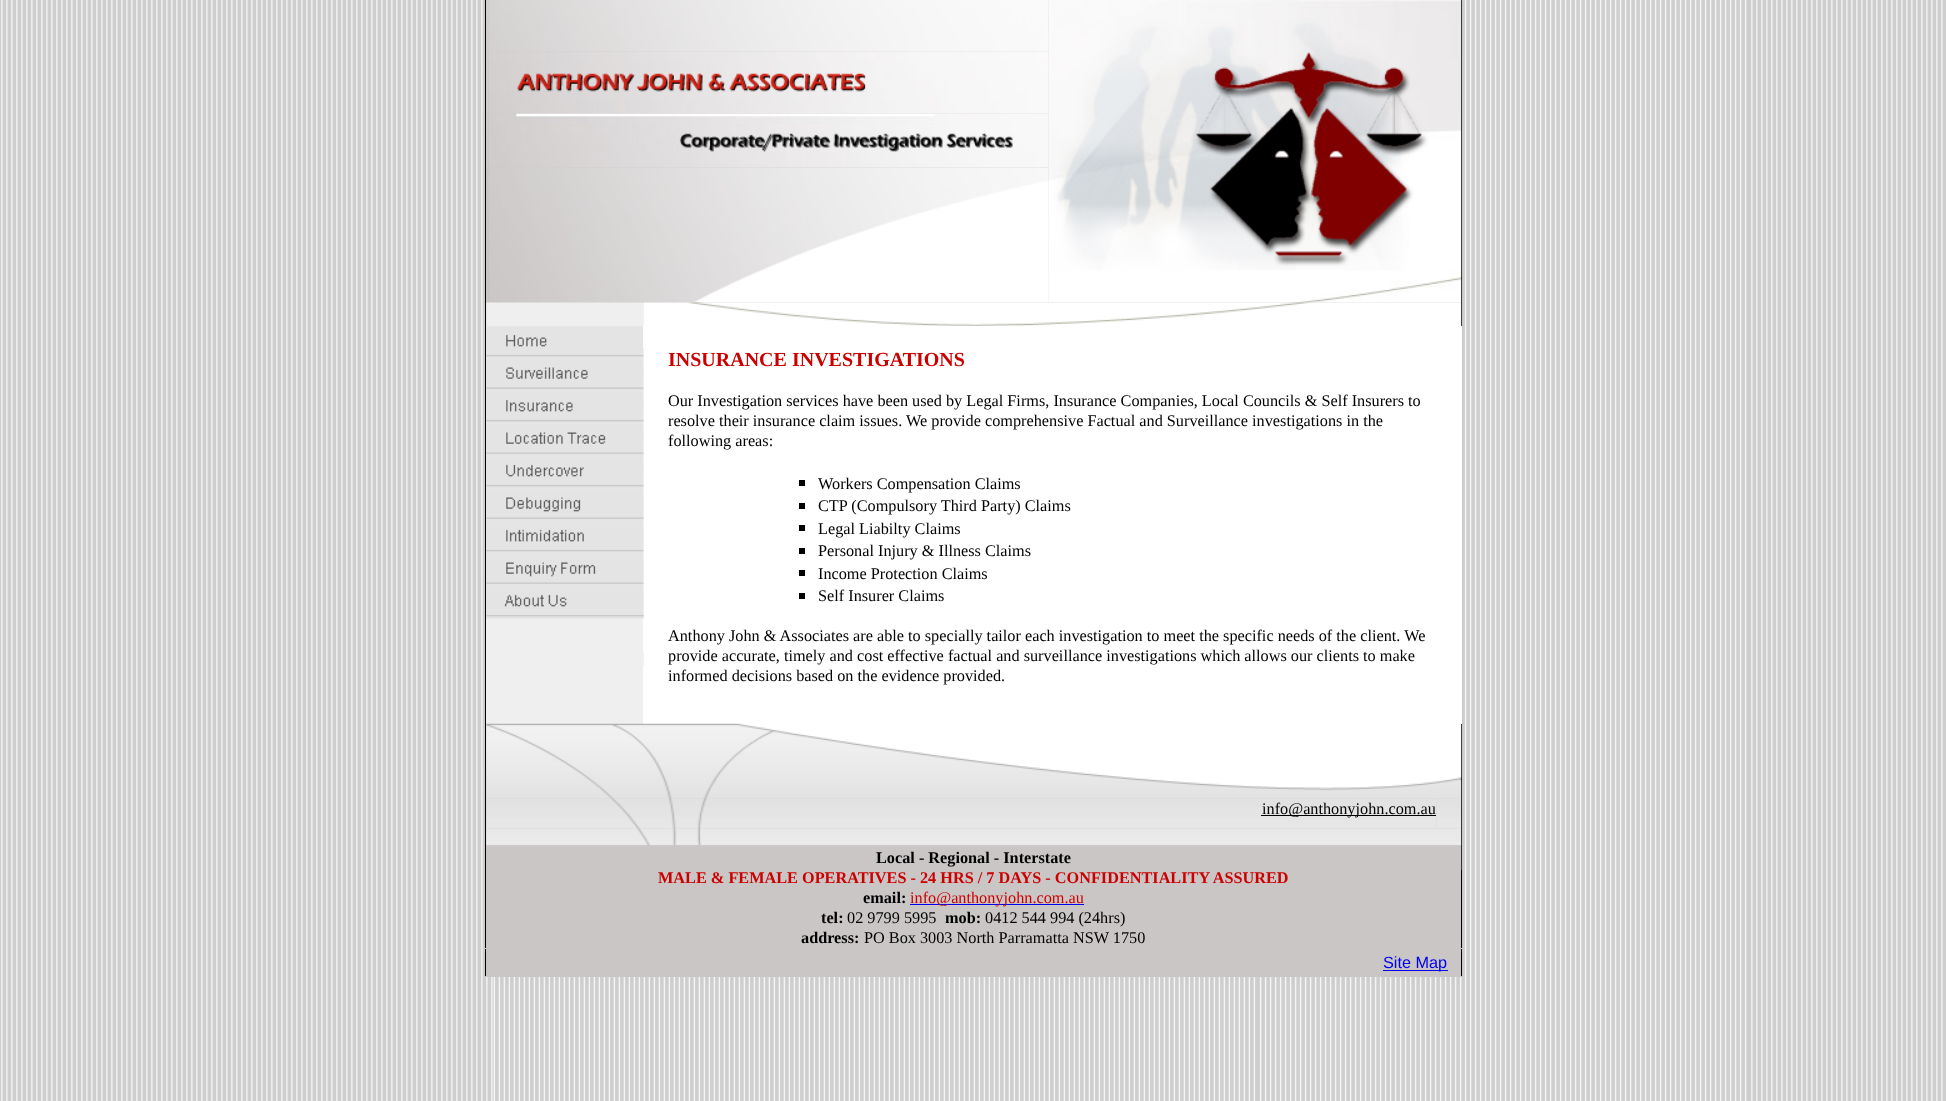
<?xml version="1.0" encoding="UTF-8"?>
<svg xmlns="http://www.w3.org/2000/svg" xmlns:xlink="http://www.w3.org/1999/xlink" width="1946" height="1101">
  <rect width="100%" height="100%" fill="#ffffff" />
  <image x="0" y="0" width="1946" height="1101" xlink:href="image1.png" />
  <rect x="486" width="977" height="948" fill="#cac6c6" />
  <rect x="1461" width="1" height="949" fill="#000000" />
  <rect x="485" width="1" height="949" fill="#000000" />
  <image x="486" y="0" width="563" height="52" xlink:href="image2.png" />
  <image x="1048" y="0" width="414" height="303" xlink:href="image3.png" />
  <image x="486" y="51" width="563" height="63" xlink:href="image4.png" />
  <image x="486" y="113" width="563" height="55" xlink:href="image5.png" />
  <image x="488" y="167" width="561" height="136" xlink:href="image6.png" />
  <rect x="486" y="326" width="157" height="398" fill="#efefef" />
  <rect x="643" y="326" width="819" height="398" fill="#ffffff" />
  <image x="486" y="302" width="976" height="25" xlink:href="image7.png" />
  <image x="486" y="326" width="158" height="33" xlink:href="image8.png" />
  <image x="486" y="359" width="158" height="33" xlink:href="image9.png" />
  <image x="486" y="391" width="158" height="33" xlink:href="image10.png" />
  <image x="486" y="424" width="158" height="33" xlink:href="image11.png" />
  <image x="486" y="456" width="158" height="33" xlink:href="image12.png" />
  <image x="486" y="489" width="158" height="33" xlink:href="image13.png" />
  <image x="486" y="521" width="158" height="33" xlink:href="image14.png" />
  <image x="486" y="554" width="158" height="33" xlink:href="image15.png" />
  <image x="486" y="586" width="158" height="33" xlink:href="image16.png" />
  <image x="643" y="651" width="1" height="15" xlink:href="image17.png" />
  <rect x="643" y="326" width="367" height="22" fill="#ffffff" />
  <rect x="643" y="349" width="1" height="264" fill="#ffffff" fill-opacity="0.25" />
  <rect x="799" y="480" width="6" height="6" fill="#000000" />
  <rect x="799" y="503" width="6" height="6" fill="#000000" />
  <rect x="799" y="525" width="6" height="6" fill="#000000" />
  <rect x="799" y="548" width="6" height="6" fill="#000000" />
  <rect x="799" y="570" width="6" height="6" fill="#000000" />
  <rect x="799" y="593" width="6" height="6" fill="#000000" />
  <image x="990" y="798" width="447" height="31" xlink:href="image20.png" />
  <image x="486" y="723" width="976" height="76" xlink:href="image18.png" />
  <image x="486" y="798" width="504" height="31" xlink:href="image19.png" />
  <rect x="1261" y="815" width="175" height="1" fill="#000000" />
  <image x="1436" y="798" width="26" height="31" xlink:href="image21.png" />
  <image x="486" y="828" width="976" height="20" xlink:href="image22.png" />
  <rect x="910" y="904" width="174" height="1" fill="#0000ee" />
  <image x="1461" y="847" width="1" height="23" xlink:href="image23.png" />
  <rect x="485" y="948" width="978" height="29" fill="#cac6c6" />
  <rect x="1461" y="949" width="1" height="27" fill="#000000" />
  <rect x="485" y="949" width="1" height="27" fill="#000000" />
  <rect x="1383" y="970" width="65" height="1" fill="#0000ee" />
  <text x="668" y="366" style="font-family: Liberation Serif; font-size: 20px; font-weight: bold; fill: #cc0000">INSURANCE INVESTIGATIONS</text>
  <text x="668" y="406" style="font-family: Liberation Serif; font-size: 16.25px; fill: #000000">Our Investigation services have been used by Legal Firms, Insurance Companies, Local Councils &amp; Self Insurers to</text>
  <text x="668" y="426" style="font-family: Liberation Serif; font-size: 16.25px; fill: #000000">resolve their insurance claim issues. We provide comprehensive Factual and Surveillance investigations in the</text>
  <text x="668" y="446" style="font-family: Liberation Serif; font-size: 16.25px; fill: #000000">following areas:</text>
  <text x="818" y="489" style="font-family: Liberation Serif; font-size: 16.25px; fill: #000000">Workers Compensation Claims</text>
  <text x="818" y="511" style="font-family: Liberation Serif; font-size: 16.25px; fill: #000000">CTP (Compulsory Third Party) Claims</text>
  <text x="818" y="534" style="font-family: Liberation Serif; font-size: 16.25px; fill: #000000">Legal Liabilty Claims</text>
  <text x="818" y="556" style="font-family: Liberation Serif; font-size: 16.25px; fill: #000000">Personal Injury &amp; Illness Claims</text>
  <text x="818" y="579" style="font-family: Liberation Serif; font-size: 16.25px; fill: #000000">Income Protection Claims</text>
  <text x="818" y="601" style="font-family: Liberation Serif; font-size: 16.25px; fill: #000000">Self Insurer Claims</text>
  <text x="668" y="641" style="font-family: Liberation Serif; font-size: 16.25px; fill: #000000">Anthony John &amp; Associates are able to specially tailor each investigation to meet the specific needs of the client. We</text>
  <text x="668" y="661" style="font-family: Liberation Serif; font-size: 16.25px; fill: #000000">provide accurate, timely and cost effective factual and surveillance investigations which allows our clients to make</text>
  <text x="668" y="681" style="font-family: Liberation Serif; font-size: 16.25px; fill: #000000">informed decisions based on the evidence provided.</text>
  <text x="1262" y="814" style="font-family: Liberation Serif; font-size: 16.25px; fill: #000000">info@anthonyjohn.com.au</text>
  <text x="876" y="863" style="font-family: Liberation Serif; font-size: 16.25px; font-weight: bold; fill: #000000">Local - Regional - Interstate</text>
  <text x="658" y="883" style="font-family: Liberation Serif; font-size: 16.25px; font-weight: bold; fill: #cc0000">MALE &amp; FEMALE OPERATIVES - 24 HRS / 7 DAYS - CONFIDENTIALITY ASSURED</text>
  <text x="863" y="903" style="font-family: Liberation Serif; font-size: 16.25px; font-weight: bold; fill: #000000">email:</text>
  <text x="910" y="903" style="font-family: Liberation Serif; font-size: 16.25px; fill: #cc0000">info@anthonyjohn.com.au</text>
  <text x="821" y="923" style="font-family: Liberation Serif; font-size: 16.25px; font-weight: bold; fill: #000000">tel:</text>
  <text x="847" y="923" style="font-family: Liberation Serif; font-size: 16.25px; fill: #000000">02 9799 5995</text>
  <text x="945" y="923" style="font-family: Liberation Serif; font-size: 16.25px; font-weight: bold; fill: #000000">mob:</text>
  <text x="985" y="923" style="font-family: Liberation Serif; font-size: 16.25px; fill: #000000">0412 544 994 (24hrs)</text>
  <text x="801" y="943" style="font-family: Liberation Serif; font-size: 16.25px; font-weight: bold; fill: #000000">address:</text>
  <text x="864" y="943" style="font-family: Liberation Serif; font-size: 16.25px; fill: #000000">PO Box 3003 North Parramatta NSW 1750</text>
  <text x="1383" y="968" style="font-family: Liberation Sans; font-size: 16.25px; fill: #0000ee">Site Map</text>
</svg>
